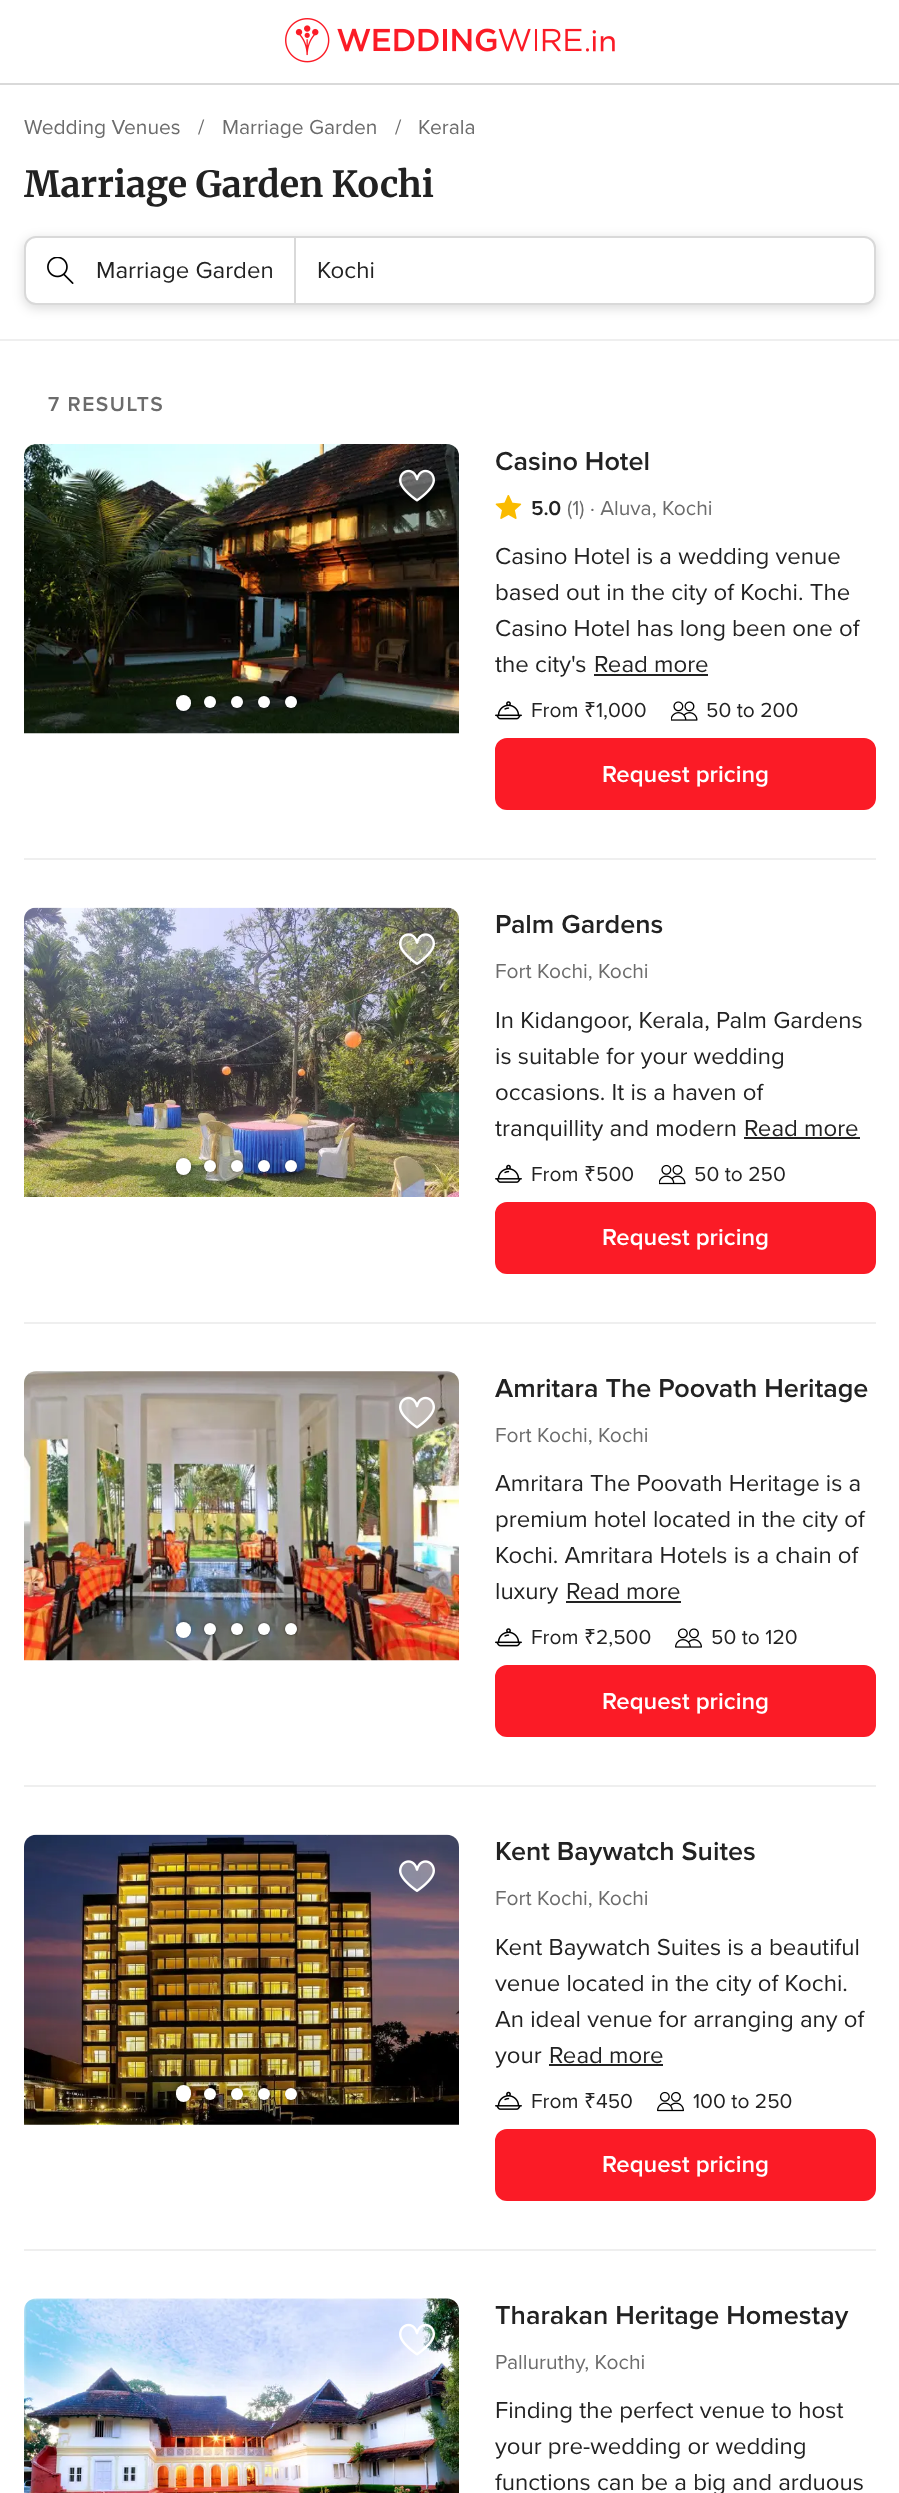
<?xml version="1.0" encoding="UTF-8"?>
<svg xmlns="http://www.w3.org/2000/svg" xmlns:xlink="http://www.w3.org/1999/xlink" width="899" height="2493">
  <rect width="100%" height="100%" fill="#ffffff" />
  <image x="285" y="18" width="330" height="45" xlink:href="image1.png" />
  <rect y="83" width="899" height="2" fill="#d9d9d9" />
  <rect x="24" y="239" width="852" height="69" rx="12" fill="#000000" fill-opacity="0.15" filter="blur(6px)" />
  <rect x="25" y="237" width="850" height="67" rx="11" fill="#ffffff" stroke="#d9d9d9" stroke-width="2" />
  <image x="47" y="257" width="27" height="27" xlink:href="image2.png" />
  <rect x="294" y="237" width="2" height="66" fill="#d9d9d9" />
  <rect y="339" width="899" height="2" fill="#efefef" />
  <rect x="24" y="858" width="852" height="2" fill="#efefef" />
  <image x="24" y="444" width="435" height="290" xlink:href="image3.png" />
  <rect x="176" y="695" width="15" height="16" rx="7.5" fill="#000000" fill-opacity="0.5" filter="blur(2px)" />
  <rect x="176" y="695" width="15" height="16" rx="7.5" fill="#ffffff" />
  <rect x="204" y="696" width="12" height="12" rx="6" fill="#000000" fill-opacity="0.5" filter="blur(1.5px)" />
  <circle cx="210" cy="702" r="6" fill="#ffffff" />
  <rect x="231" y="696" width="12" height="12" rx="6" fill="#000000" fill-opacity="0.5" filter="blur(1.5px)" />
  <circle cx="237" cy="702" r="6" fill="#ffffff" />
  <rect x="258" y="696" width="12" height="12" rx="6" fill="#000000" fill-opacity="0.5" filter="blur(1.5px)" />
  <circle cx="264" cy="702" r="6" fill="#ffffff" />
  <rect x="285" y="696" width="12" height="12" rx="6" fill="#000000" fill-opacity="0.5" filter="blur(1.5px)" />
  <circle cx="291" cy="702" r="6" fill="#ffffff" />
  <image x="399" y="469" width="36" height="33" xlink:href="image4.png" />
  <image x="495" y="495" width="27" height="24" xlink:href="image5.png" />
  <rect x="594" y="674" width="114" height="2" fill="#222222" />
  <image x="495" y="701" width="27" height="19" xlink:href="image6.png" />
  <image x="671" y="701" width="27" height="20" xlink:href="image7.png" />
  <rect x="496" y="739" width="379" height="70" rx="11" fill="#fb1b26" stroke="#fb1b26" stroke-width="2" />
  <rect x="24" y="1322" width="852" height="2" fill="#efefef" />
  <image x="24" y="907" width="435" height="290" xlink:href="image8.png" />
  <rect x="176" y="1158" width="15" height="17" rx="7.5" fill="#000000" fill-opacity="0.5" filter="blur(2px)" />
  <rect x="176" y="1158" width="15" height="17" rx="7.5" fill="#ffffff" />
  <rect x="204" y="1160" width="12" height="12" rx="6" fill="#000000" fill-opacity="0.5" filter="blur(1.5px)" />
  <circle cx="210" cy="1166" r="6" fill="#ffffff" />
  <rect x="231" y="1160" width="12" height="12" rx="6" fill="#000000" fill-opacity="0.5" filter="blur(1.5px)" />
  <circle cx="237" cy="1166" r="6" fill="#ffffff" />
  <rect x="258" y="1160" width="12" height="12" rx="6" fill="#000000" fill-opacity="0.5" filter="blur(1.5px)" />
  <circle cx="264" cy="1166" r="6" fill="#ffffff" />
  <rect x="285" y="1160" width="12" height="12" rx="6" fill="#000000" fill-opacity="0.5" filter="blur(1.5px)" />
  <circle cx="291" cy="1166" r="6" fill="#ffffff" />
  <image x="399" y="933" width="36" height="32" xlink:href="image9.png" />
  <rect x="744" y="1137" width="116" height="2" fill="#222222" />
  <image x="495" y="1164" width="27" height="19" xlink:href="image10.png" />
  <image x="659" y="1164" width="27" height="21" xlink:href="image11.png" />
  <rect x="496" y="1203" width="379" height="70" rx="11" fill="#fb1b26" stroke="#fb1b26" stroke-width="2" />
  <rect x="24" y="1785" width="852" height="2" fill="#efefef" />
  <image x="24" y="1371" width="435" height="290" xlink:href="image12.png" />
  <rect x="176" y="1622" width="15" height="16" rx="7.5" fill="#000000" fill-opacity="0.5" filter="blur(2px)" />
  <rect x="176" y="1622" width="15" height="16" rx="7.5" fill="#ffffff" />
  <rect x="204" y="1623" width="12" height="12" rx="6" fill="#000000" fill-opacity="0.5" filter="blur(1.5px)" />
  <circle cx="210" cy="1629" r="6" fill="#ffffff" />
  <rect x="231" y="1623" width="12" height="12" rx="6" fill="#000000" fill-opacity="0.5" filter="blur(1.5px)" />
  <circle cx="237" cy="1629" r="6" fill="#ffffff" />
  <rect x="258" y="1623" width="12" height="12" rx="6" fill="#000000" fill-opacity="0.5" filter="blur(1.5px)" />
  <circle cx="264" cy="1629" r="6" fill="#ffffff" />
  <rect x="285" y="1623" width="12" height="12" rx="6" fill="#000000" fill-opacity="0.5" filter="blur(1.5px)" />
  <circle cx="291" cy="1629" r="6" fill="#ffffff" />
  <image x="399" y="1396" width="36" height="33" xlink:href="image13.png" />
  <rect x="566" y="1601" width="115" height="2" fill="#222222" />
  <image x="495" y="1628" width="27" height="19" xlink:href="image6.png" />
  <image x="675" y="1628" width="27" height="20" xlink:href="image14.png" />
  <rect x="496" y="1666" width="379" height="70" rx="11" fill="#fb1b26" stroke="#fb1b26" stroke-width="2" />
  <rect x="24" y="2249" width="852" height="2" fill="#efefef" />
  <image x="24" y="1834" width="435" height="291" xlink:href="image15.png" />
  <rect x="176" y="2085" width="15" height="17" rx="7.5" fill="#000000" fill-opacity="0.5" filter="blur(2px)" />
  <rect x="176" y="2085" width="15" height="17" rx="7.5" fill="#ffffff" />
  <rect x="204" y="2088" width="12" height="12" rx="6" fill="#000000" fill-opacity="0.5" filter="blur(1.5px)" />
  <circle cx="210" cy="2094" r="6" fill="#ffffff" />
  <rect x="231" y="2088" width="12" height="12" rx="6" fill="#000000" fill-opacity="0.5" filter="blur(1.5px)" />
  <circle cx="237" cy="2094" r="6" fill="#ffffff" />
  <rect x="258" y="2088" width="12" height="12" rx="6" fill="#000000" fill-opacity="0.5" filter="blur(1.5px)" />
  <circle cx="264" cy="2094" r="6" fill="#ffffff" />
  <rect x="285" y="2088" width="12" height="12" rx="6" fill="#000000" fill-opacity="0.5" filter="blur(1.5px)" />
  <circle cx="291" cy="2094" r="6" fill="#ffffff" />
  <image x="399" y="1860" width="36" height="32" xlink:href="image16.png" />
  <rect x="549" y="2064" width="114" height="2" fill="#222222" />
  <image x="495" y="2091" width="27" height="19" xlink:href="image10.png" />
  <image x="657" y="2091" width="27" height="21" xlink:href="image17.png" />
  <rect x="496" y="2130" width="379" height="70" rx="11" fill="#fb1b26" stroke="#fb1b26" stroke-width="2" />
  <image x="24" y="2298" width="435" height="195" xlink:href="image18.png" />
  <image x="399" y="2323" width="36" height="33" xlink:href="image19.png" />
  <text x="24" y="134" style="font-family: Proxima Nova; font-size: 21px; fill: #6c6c6c">Wedding Venues</text>
  <text x="198" y="134" style="font-family: Proxima Nova; font-size: 21px; fill: #6c6c6c">/</text>
  <text x="222" y="134" style="font-family: Proxima Nova; font-size: 21px; fill: #6c6c6c">Marriage Garden</text>
  <text x="395" y="134" style="font-family: Proxima Nova; font-size: 21px; fill: #6c6c6c">/</text>
  <text x="418" y="134" style="font-family: Proxima Nova; font-size: 21px; fill: #6c6c6c">Kerala</text>
  <text x="24" y="197" style="font-family: Merriweather; font-size: 36px; font-weight: bold; fill: #222222">Marriage Garden Kochi</text>
  <text x="96" y="278" style="font-family: Proxima Nova; font-size: 24px; fill: #222222">Marriage Garden</text>
  <text x="317" y="278" style="font-family: Proxima Nova; font-size: 24px; fill: #222222">Kochi</text>
  <text x="48" y="411" style="font-family: Proxima Nova; font-size: 21px; font-weight: 600; letter-spacing: 1.5px; fill: #6c6c6c">7 RESULTS</text>
  <text x="495" y="470" style="font-family: Proxima Nova; font-size: 27px; font-weight: 600; fill: #222222">Casino Hotel</text>
  <text x="531" y="515" style="font-family: Proxima Nova; font-size: 21px; font-weight: 600; fill: #222222">5.0</text>
  <text x="567" y="515" style="font-family: Proxima Nova; font-size: 21px; fill: #6c6c6c">(1) · Aluva, Kochi</text>
  <text x="495" y="564" style="font-family: Proxima Nova; font-size: 24px; fill: #222222">Casino Hotel is a wedding venue</text>
  <text x="495" y="600" style="font-family: Proxima Nova; font-size: 24px; fill: #222222">based out in the city of Kochi. The</text>
  <text x="495" y="636" style="font-family: Proxima Nova; font-size: 24px; fill: #222222">Casino Hotel has long been one of</text>
  <text x="495" y="672" style="font-family: Proxima Nova; font-size: 24px; fill: #222222">the city's</text>
  <text x="594" y="672" style="font-family: Proxima Nova; font-size: 24px; fill: #222222">Read more</text>
  <text x="531" y="717" style="font-family: Proxima Nova; font-size: 21px; fill: #222222">From</text>
  <text x="584" y="717" style="font-family: Noto Sans; font-size: 21px; fill: #222222">₹</text>
  <text x="596" y="717" style="font-family: Proxima Nova; font-size: 21px; fill: #222222">1,000</text>
  <text x="706" y="717" style="font-family: Proxima Nova; font-size: 21px; fill: #222222">50 to 200</text>
  <text x="602" y="782" style="font-family: Proxima Nova; font-size: 24px; font-weight: 600; fill: #ffffff">Request pricing</text>
  <text x="495" y="933" style="font-family: Proxima Nova; font-size: 27px; font-weight: 600; fill: #222222">Palm Gardens</text>
  <text x="495" y="978" style="font-family: Proxima Nova; font-size: 21px; fill: #6c6c6c">Fort Kochi, Kochi</text>
  <text x="495" y="1028" style="font-family: Proxima Nova; font-size: 24px; fill: #222222">In Kidangoor, Kerala, Palm Gardens</text>
  <text x="495" y="1064" style="font-family: Proxima Nova; font-size: 24px; fill: #222222">is suitable for your wedding</text>
  <text x="495" y="1100" style="font-family: Proxima Nova; font-size: 24px; fill: #222222">occasions. It is a haven of</text>
  <text x="495" y="1136" style="font-family: Proxima Nova; font-size: 24px; fill: #222222">tranquillity and modern</text>
  <text x="744" y="1136" style="font-family: Proxima Nova; font-size: 24px; fill: #222222">Read more</text>
  <text x="531" y="1181" style="font-family: Proxima Nova; font-size: 21px; fill: #222222">From</text>
  <text x="584" y="1181" style="font-family: Noto Sans; font-size: 21px; fill: #222222">₹</text>
  <text x="596" y="1181" style="font-family: Proxima Nova; font-size: 21px; fill: #222222">500</text>
  <text x="694" y="1181" style="font-family: Proxima Nova; font-size: 21px; fill: #222222">50 to 250</text>
  <text x="602" y="1245" style="font-family: Proxima Nova; font-size: 24px; font-weight: 600; fill: #ffffff">Request pricing</text>
  <text x="495" y="1397" style="font-family: Proxima Nova; font-size: 27px; font-weight: 600; fill: #222222">Amritara The Poovath Heritage</text>
  <text x="495" y="1442" style="font-family: Proxima Nova; font-size: 21px; fill: #6c6c6c">Fort Kochi, Kochi</text>
  <text x="495" y="1491" style="font-family: Proxima Nova; font-size: 24px; fill: #222222">Amritara The Poovath Heritage is a</text>
  <text x="495" y="1527" style="font-family: Proxima Nova; font-size: 24px; fill: #222222">premium hotel located in the city of</text>
  <text x="495" y="1563" style="font-family: Proxima Nova; font-size: 24px; fill: #222222">Kochi. Amritara Hotels is a chain of</text>
  <text x="495" y="1599" style="font-family: Proxima Nova; font-size: 24px; fill: #222222">luxury</text>
  <text x="566" y="1599" style="font-family: Proxima Nova; font-size: 24px; fill: #222222">Read more</text>
  <text x="531" y="1644" style="font-family: Proxima Nova; font-size: 21px; fill: #222222">From</text>
  <text x="584" y="1644" style="font-family: Noto Sans; font-size: 21px; fill: #222222">₹</text>
  <text x="596" y="1644" style="font-family: Proxima Nova; font-size: 21px; fill: #222222">2,500</text>
  <text x="711" y="1644" style="font-family: Proxima Nova; font-size: 21px; fill: #222222">50 to 120</text>
  <text x="602" y="1709" style="font-family: Proxima Nova; font-size: 24px; font-weight: 600; fill: #ffffff">Request pricing</text>
  <text x="495" y="1860" style="font-family: Proxima Nova; font-size: 27px; font-weight: 600; fill: #222222">Kent Baywatch Suites</text>
  <text x="495" y="1905" style="font-family: Proxima Nova; font-size: 21px; fill: #6c6c6c">Fort Kochi, Kochi</text>
  <text x="495" y="1955" style="font-family: Proxima Nova; font-size: 24px; fill: #222222">Kent Baywatch Suites is a beautiful</text>
  <text x="495" y="1991" style="font-family: Proxima Nova; font-size: 24px; fill: #222222">venue located in the city of Kochi.</text>
  <text x="495" y="2027" style="font-family: Proxima Nova; font-size: 24px; fill: #222222">An ideal venue for arranging any of</text>
  <text x="495" y="2063" style="font-family: Proxima Nova; font-size: 24px; fill: #222222">your</text>
  <text x="549" y="2063" style="font-family: Proxima Nova; font-size: 24px; fill: #222222">Read more</text>
  <text x="531" y="2108" style="font-family: Proxima Nova; font-size: 21px; fill: #222222">From</text>
  <text x="584" y="2108" style="font-family: Noto Sans; font-size: 21px; fill: #222222">₹</text>
  <text x="596" y="2108" style="font-family: Proxima Nova; font-size: 21px; fill: #222222">450</text>
  <text x="693" y="2108" style="font-family: Proxima Nova; font-size: 21px; fill: #222222">100 to 250</text>
  <text x="602" y="2172" style="font-family: Proxima Nova; font-size: 24px; font-weight: 600; fill: #ffffff">Request pricing</text>
  <text x="495" y="2324" style="font-family: Proxima Nova; font-size: 27px; font-weight: 600; fill: #222222">Tharakan Heritage Homestay</text>
  <text x="495" y="2369" style="font-family: Proxima Nova; font-size: 21px; fill: #6c6c6c">Palluruthy, Kochi</text>
  <text x="495" y="2418" style="font-family: Proxima Nova; font-size: 24px; fill: #222222">Finding the perfect venue to host</text>
  <text x="495" y="2454" style="font-family: Proxima Nova; font-size: 24px; fill: #222222">your pre-wedding or wedding</text>
  <text x="495" y="2490" style="font-family: Proxima Nova; font-size: 24px; fill: #222222">functions can be a big and arduous</text>
</svg>
